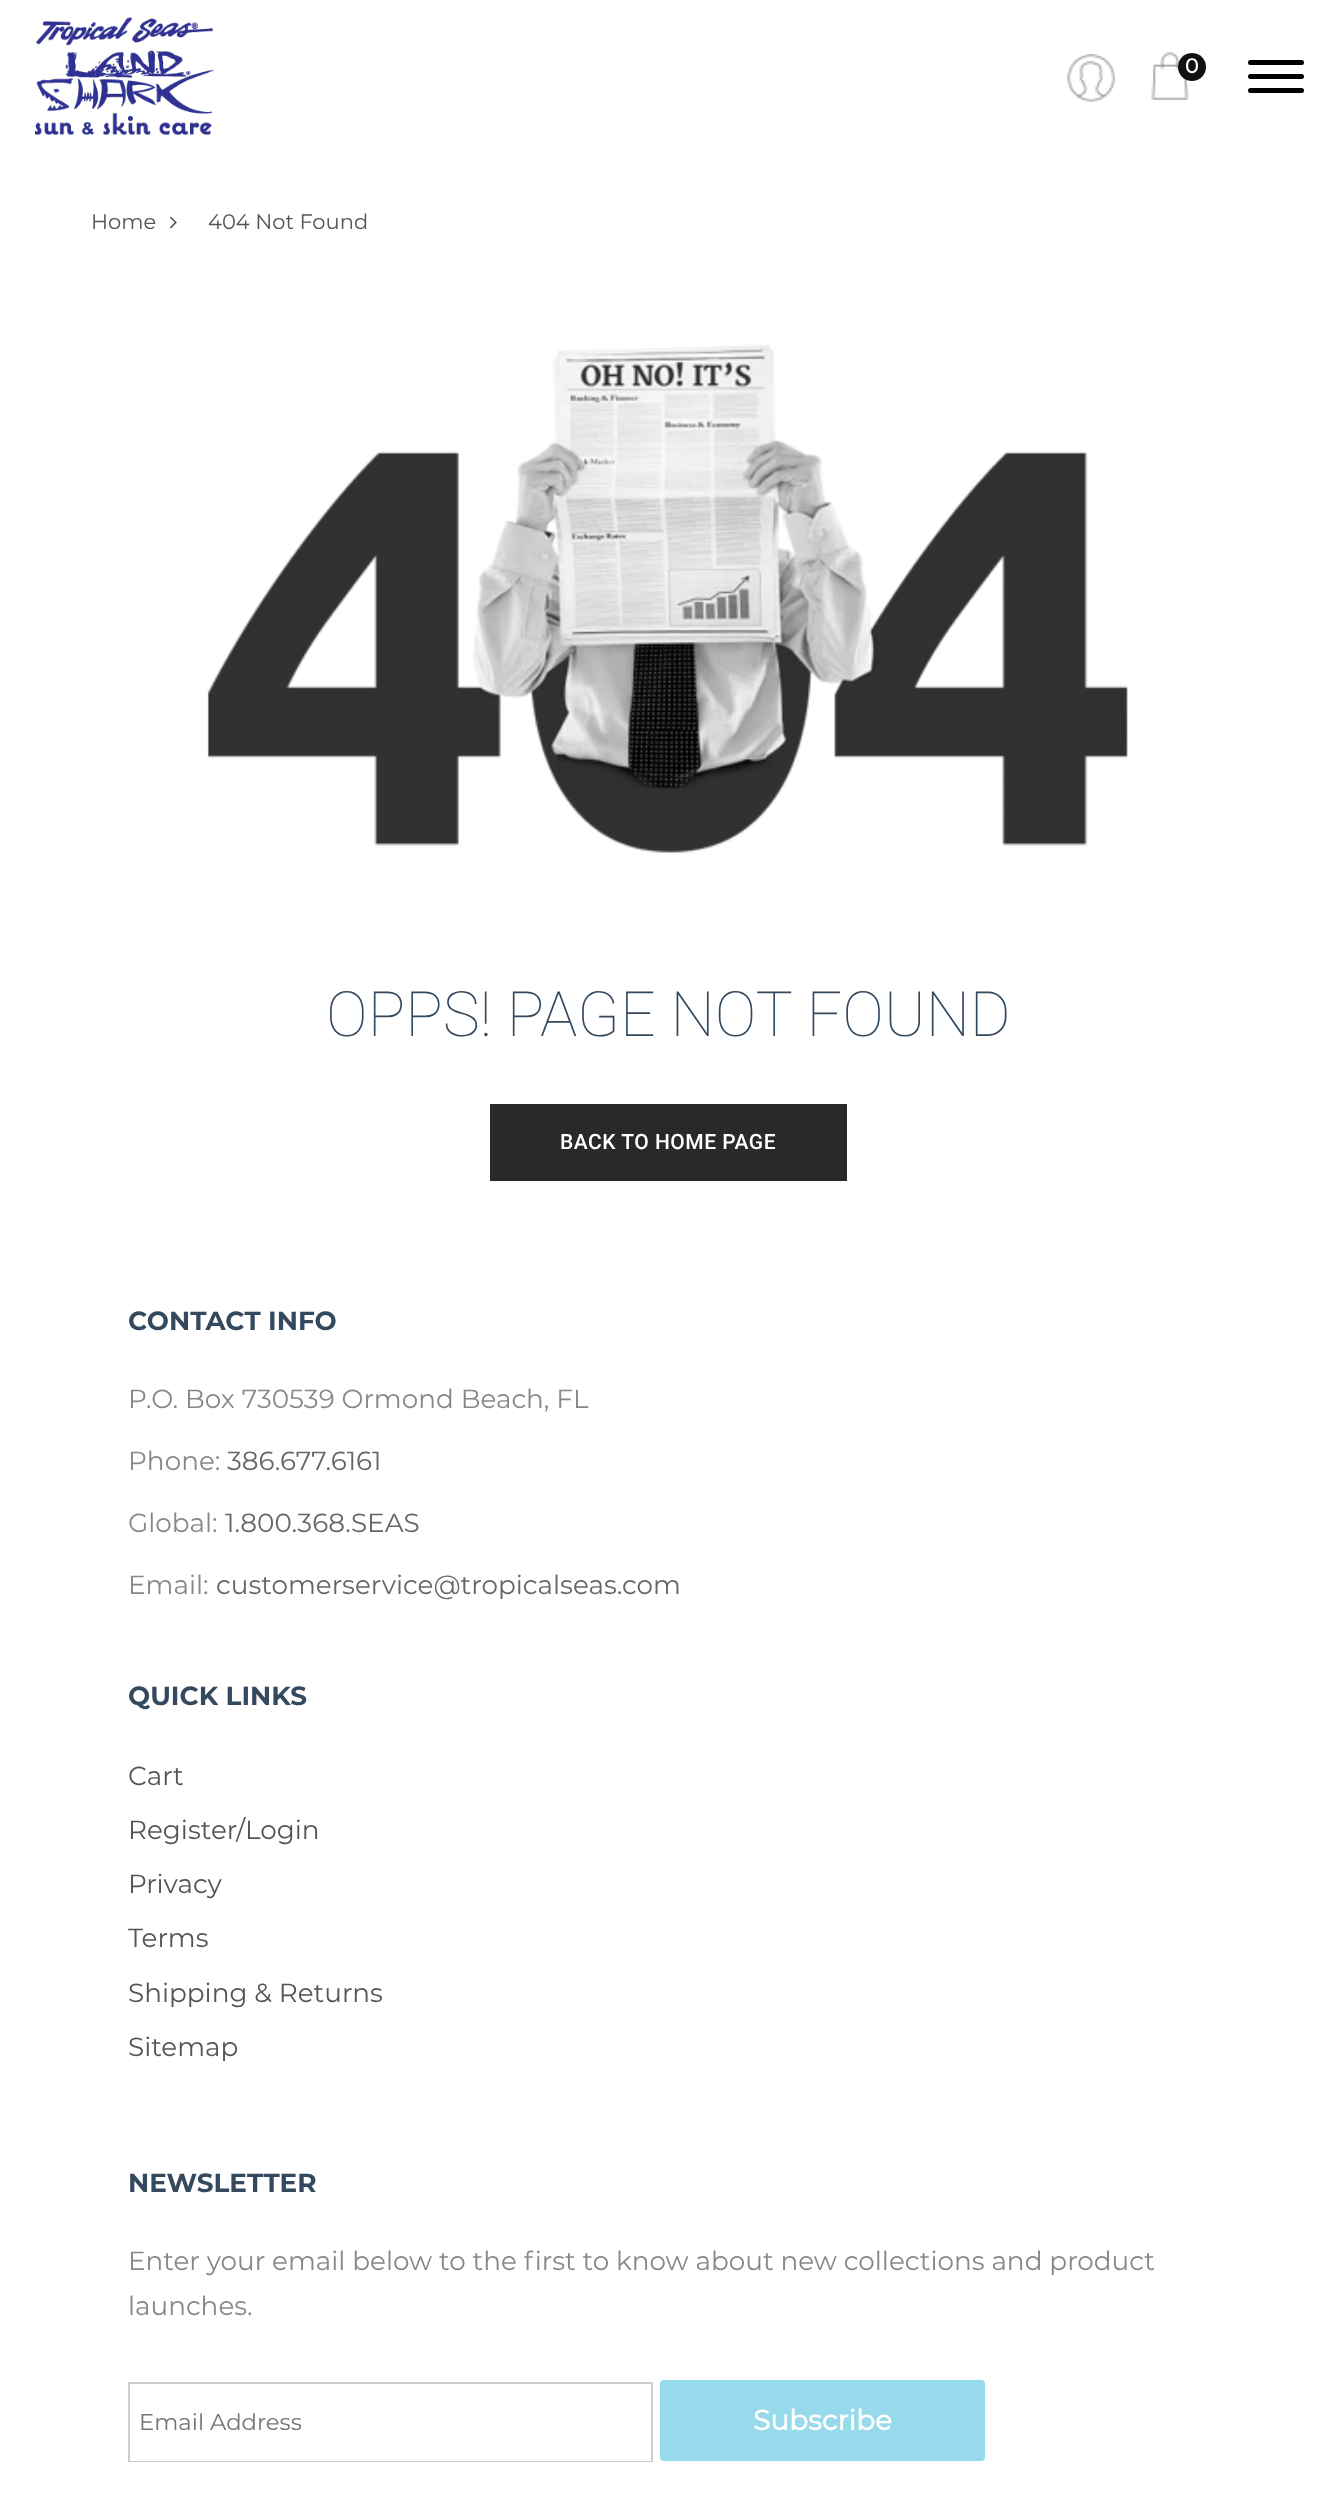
<?xml version="1.0" encoding="UTF-8"?>
<svg xmlns="http://www.w3.org/2000/svg" xmlns:xlink="http://www.w3.org/1999/xlink" width="1336" height="2494">
  <rect width="100%" height="100%" fill="#ffffff" />
  <image x="35" y="17" width="179" height="118" xlink:href="image1.png" />
  <image x="1067" y="54" width="48" height="48" xlink:href="image2.png" />
  <image x="1151" y="52" width="38" height="48" xlink:href="image3.png" />
  <circle cx="1192" cy="67" r="14" fill="#111111" />
  <rect x="1248" y="74" width="56" height="5" rx="2.5" fill="#000000" />
  <rect x="1248" y="60" width="56" height="5" rx="2.5" fill="#000000" />
  <rect x="1248" y="88" width="56" height="5" rx="2.5" fill="#000000" />
  <image x="170" y="216" width="7" height="13" xlink:href="image4.png" />
  <image x="207" y="344" width="921" height="509" xlink:href="image5.png" />
  <rect x="490" y="1104" width="357" height="77" fill="#292929" />
  <rect x="129" y="2383" width="523" height="78" fill="none" stroke="#cccccc" stroke-width="2" />
  <rect x="130" y="2460" width="521" height="1" fill="#ffffff" />
  <rect x="660" y="2380" width="325" height="81" rx="4" fill="#97daeb" />
  <text x="1185" y="73" style="font-family: Montserrat; font-size: 21px; font-weight: 500; fill: #ffffff">0</text>
  <text x="91" y="229" style="font-family: Montserrat; font-size: 21px; fill: #555555">Home</text>
  <text x="208" y="229" style="font-family: Montserrat; font-size: 21px; fill: #555555">404 Not Found</text>
  <text x="326" y="1036" style="font-family: Roboto; font-size: 62.5px; font-weight: 100; fill: #34495e">OPPS! PAGE NOT FOUND</text>
  <text x="560" y="1149" style="font-family: Roboto; font-size: 21px; font-weight: 500; letter-spacing: 0.5px; fill: #ffffff">BACK TO HOME PAGE</text>
  <text x="128" y="1330" style="font-family: Montserrat; font-size: 26.25px; font-weight: bold; fill: #34495e">CONTACT INFO</text>
  <text x="128" y="1408" style="font-family: Montserrat; font-size: 26.25px; fill: #888888">P.O. Box 730539 Ormond Beach, FL</text>
  <text x="128" y="1470" style="font-family: Montserrat; font-size: 26.25px; fill: #888888">Phone:</text>
  <text x="227" y="1470" style="font-family: Montserrat; font-size: 26.25px; fill: #666666">386.677.6161</text>
  <text x="128" y="1532" style="font-family: Montserrat; font-size: 26.25px; fill: #888888">Global:</text>
  <text x="225" y="1532" style="font-family: Montserrat; font-size: 26.25px; fill: #666666">1.800.368.SEAS</text>
  <text x="128" y="1594" style="font-family: Montserrat; font-size: 26.25px; fill: #888888">Email:</text>
  <text x="216" y="1594" style="font-family: Montserrat; font-size: 26.25px; fill: #666666">customerservice@tropicalseas.com</text>
  <text x="128" y="1705" style="font-family: Montserrat; font-size: 26.25px; font-weight: bold; fill: #34495e">QUICK LINKS</text>
  <text x="128" y="1785" style="font-family: Montserrat; font-size: 26.25px; fill: #555555">Cart</text>
  <text x="128" y="1839" style="font-family: Montserrat; font-size: 26.25px; fill: #555555">Register/Login</text>
  <text x="128" y="1893" style="font-family: Montserrat; font-size: 26.25px; fill: #555555">Privacy</text>
  <text x="128" y="1947" style="font-family: Montserrat; font-size: 26.25px; fill: #555555">Terms</text>
  <text x="128" y="2002" style="font-family: Montserrat; font-size: 26.25px; fill: #555555">Shipping &amp; Returns</text>
  <text x="128" y="2056" style="font-family: Montserrat; font-size: 26.25px; fill: #555555">Sitemap</text>
  <text x="128" y="2192" style="font-family: Montserrat; font-size: 26.25px; font-weight: bold; fill: #34495e">NEWSLETTER</text>
  <text x="128" y="2270" style="font-family: Montserrat; font-size: 26.25px; fill: #888888">Enter your email below to the first to know about new collections and product</text>
  <text x="128" y="2315" style="font-family: Montserrat; font-size: 26.25px; fill: #888888">launches.</text>
  <text x="139" y="2430" style="font-family: Montserrat; font-size: 22.75px; fill: #757575">Email Address</text>
  <text x="753" y="2430" style="font-family: 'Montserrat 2'; font-size: 28px; font-weight: bold; fill: #ffffff">Subscribe</text>
</svg>
